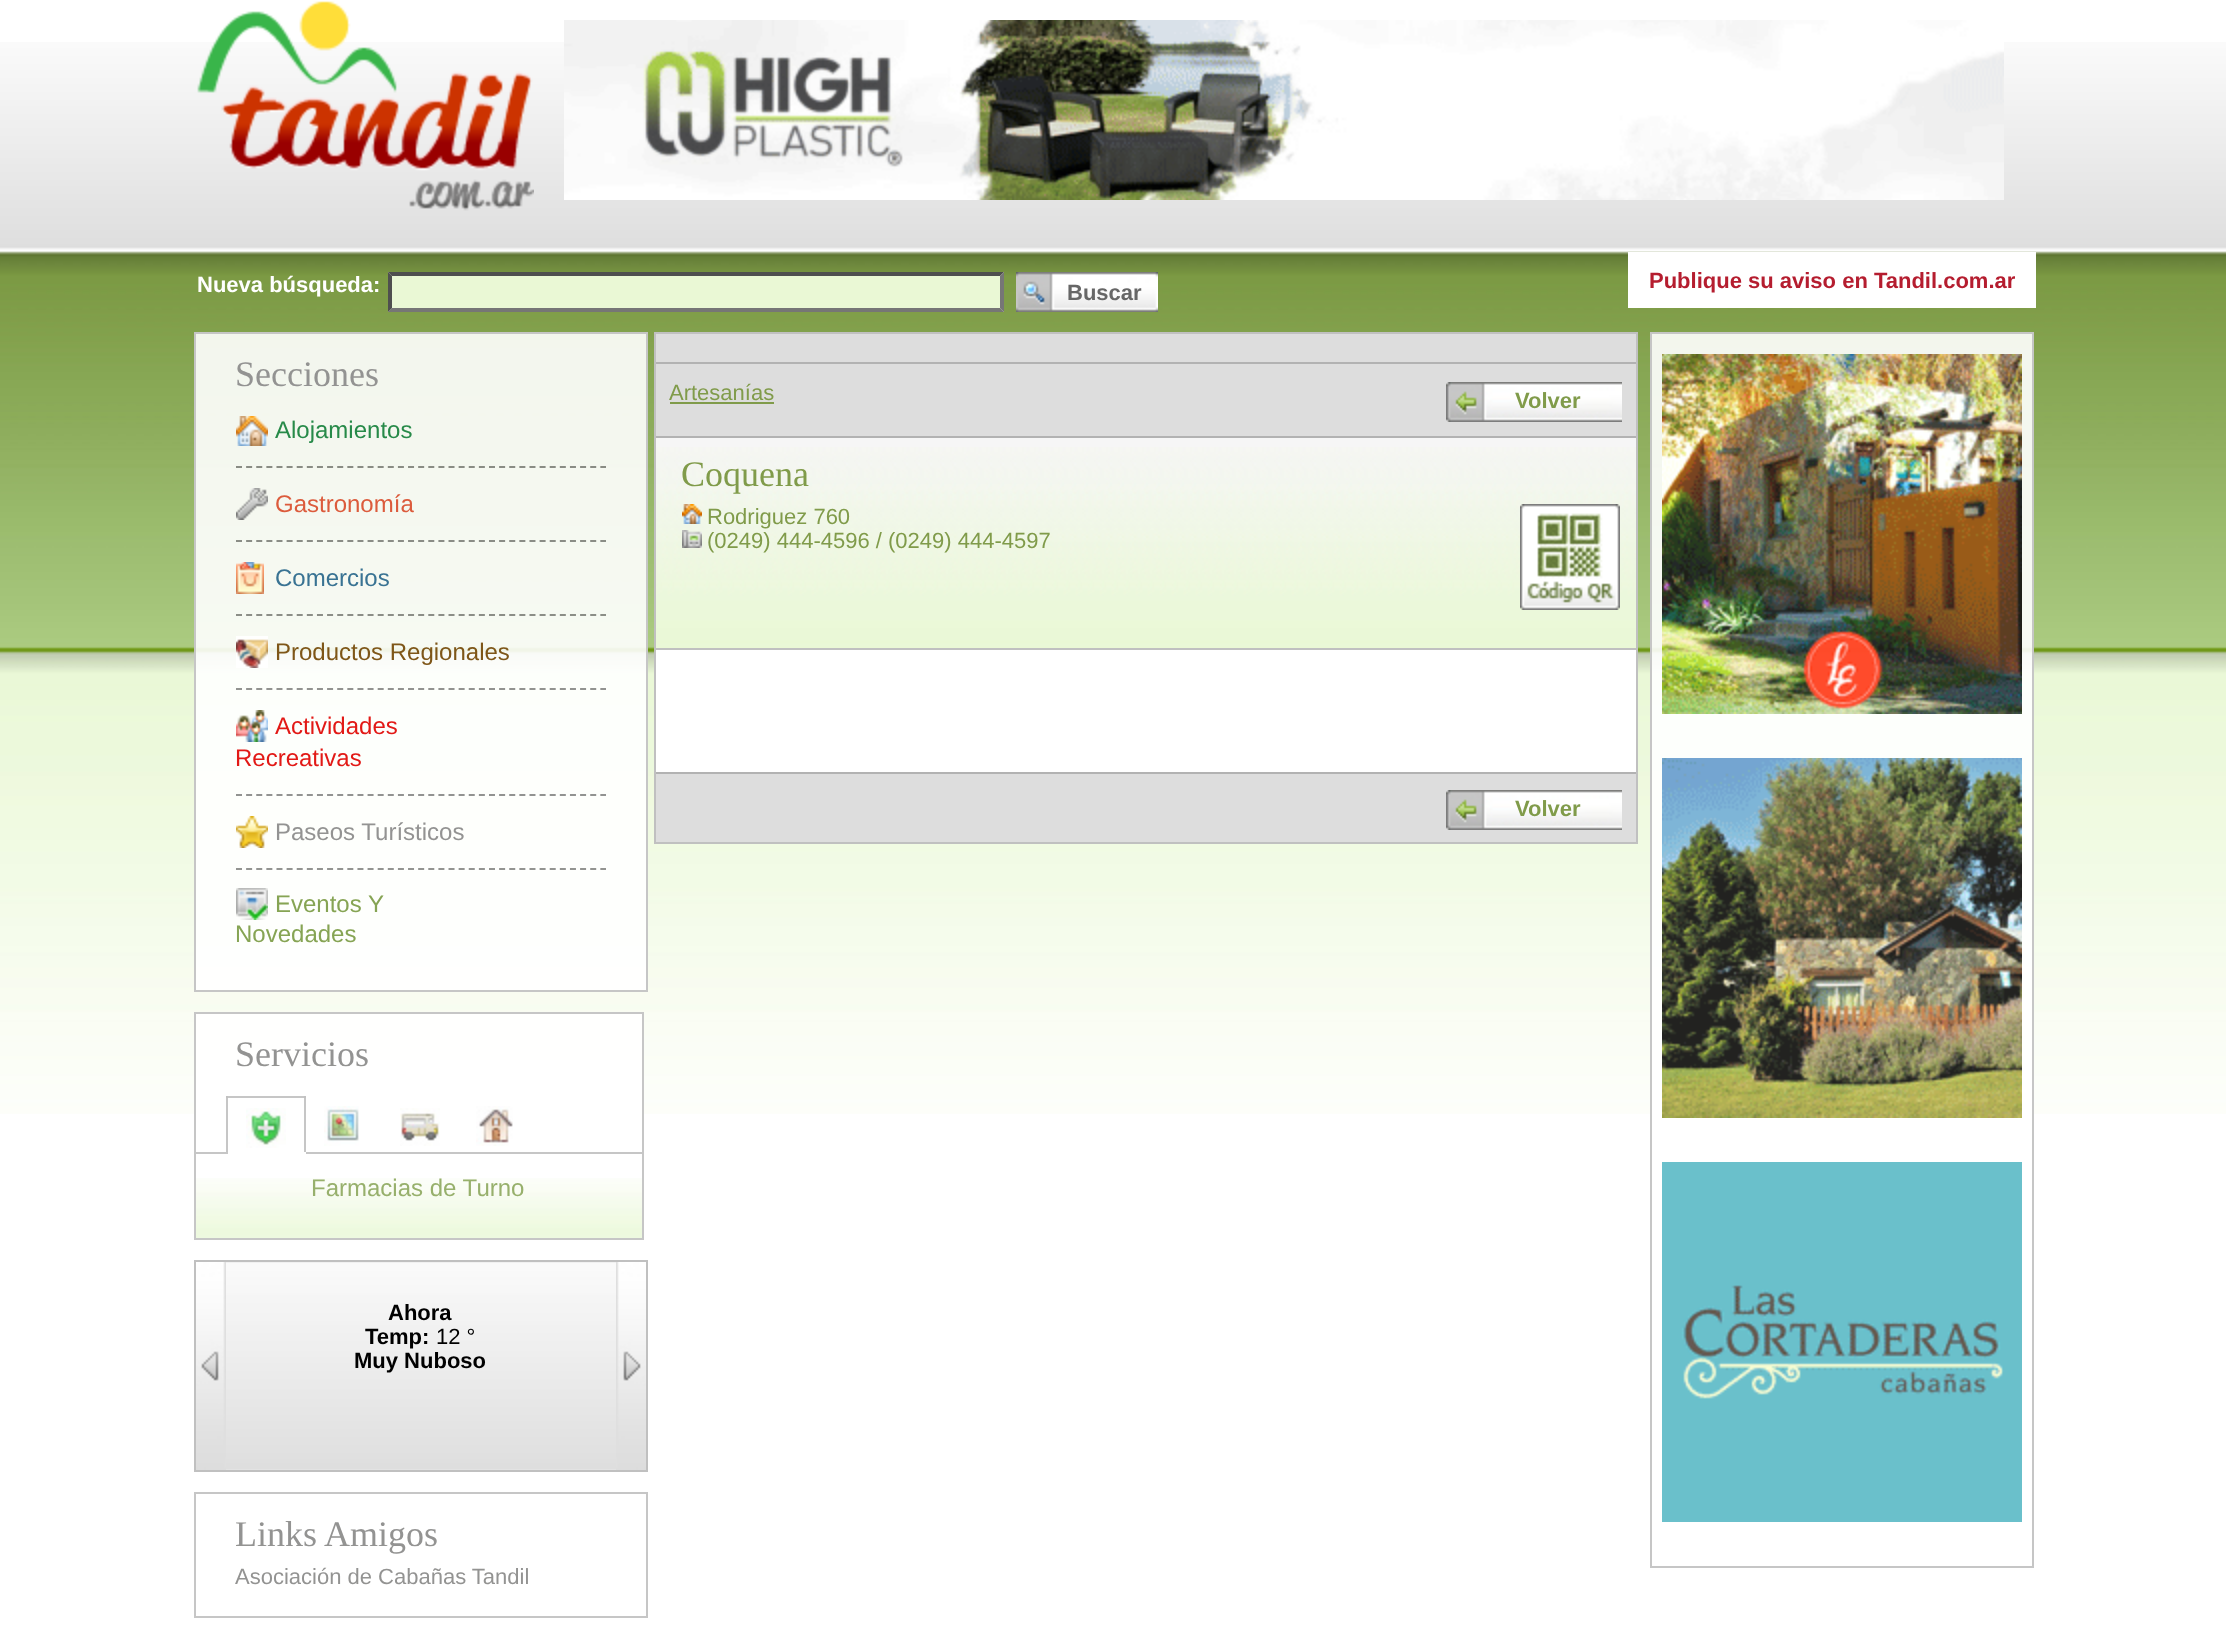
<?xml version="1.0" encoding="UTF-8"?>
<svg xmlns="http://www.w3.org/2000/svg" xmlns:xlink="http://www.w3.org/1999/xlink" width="2226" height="1636">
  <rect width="100%" height="100%" fill="#ffffff" />
  <image x="0" y="42" width="2226" height="1072" xlink:href="image1.png" />
  <image x="197" y="1" width="337" height="210" xlink:href="image2.png" />
  <image x="564" y="20" width="1440" height="180" xlink:href="image3.png" />
  <rect x="388" y="272" width="616" height="40" fill="#eaf8d5" />
  <path d="M 388 272 h 616 l -4 4 h -608 z" fill="#4f4f4f" />
  <path d="M 1004 272 v 40 l -4 -4 v -32 z" fill="#767676" />
  <path d="M 1004 312 h -616 l 4 -4 h 608 z" fill="#767676" />
  <path d="M 388 312 v -40 l 4 4 v 32 z" fill="#4f4f4f" />
  <image x="1016" y="272" width="142" height="40" xlink:href="image4.png" />
  <rect x="1628" y="252" width="408" height="56" fill="#ffffff" />
  <rect x="194" y="332" width="454" height="660" fill="#ffffff" fill-opacity="0.9" />
  <rect x="195" y="333" width="452" height="658" fill="none" stroke="#c0c0c0" stroke-opacity="0.9" stroke-width="2" />
  <path d="M 236 467 h 370" fill="none" stroke="#898c84" stroke-width="2" stroke-dasharray="6 4.12" />
  <image x="236" y="416" width="32" height="30" xlink:href="image5.png" />
  <path d="M 236 541 h 370" fill="none" stroke="#8a8d86" stroke-width="2" stroke-dasharray="6 4.12" />
  <image x="236" y="488" width="32" height="32" xlink:href="image6.png" />
  <path d="M 236 615 h 370" fill="none" stroke="#8b8e87" stroke-width="2" stroke-dasharray="6 4.12" />
  <image x="236" y="562" width="28" height="32" xlink:href="image7.png" />
  <path d="M 236 689 h 370" fill="none" stroke="#929390" stroke-width="2" stroke-dasharray="6 4.12" />
  <image x="236" y="636" width="32" height="32" xlink:href="image8.png" />
  <path d="M 236 795 h 370" fill="none" stroke="#929391" stroke-width="2" stroke-dasharray="6 4.12" />
  <image x="236" y="710" width="32" height="32" xlink:href="image9.png" />
  <path d="M 236 869 h 370" fill="none" stroke="#939491" stroke-width="2" stroke-dasharray="6 4.12" />
  <image x="236" y="816" width="32" height="32" xlink:href="image10.png" />
  <image x="236" y="888" width="32" height="32" xlink:href="image11.png" />
  <rect x="196" y="1014" width="446" height="100" fill="#ffffff" fill-opacity="0.9" />
  <rect x="195" y="1013" width="448" height="226" fill="none" stroke="#c6c6c6" stroke-width="2" />
  <rect x="226" y="1096" width="80" height="2" fill="#c6c6c6" />
  <rect x="196" y="1152" width="446" height="2" fill="#c6c6c6" />
  <rect x="304" y="1096" width="2" height="58" fill="#c0c0c0" fill-opacity="0.9" />
  <rect x="226" y="1152" width="80" height="2" fill="#ffffff" />
  <rect x="226" y="1096" width="2" height="58" fill="#c0c0c0" fill-opacity="0.9" />
  <image x="246" y="1108" width="40" height="40" xlink:href="image12.png" />
  <image x="324" y="1106" width="35" height="40" xlink:href="image13.png" />
  <image x="400" y="1108" width="40" height="38" xlink:href="image14.png" />
  <image x="476" y="1106" width="37" height="40" xlink:href="image15.png" />
  <image x="196" y="1178" width="446" height="60" xlink:href="image16.png" />
  <image x="226" y="1262" width="390" height="208" xlink:href="image17.png" />
  <rect x="195" y="1261" width="452" height="210" fill="none" stroke="#c0c0c0" stroke-width="2" />
  <image x="196" y="1262" width="30" height="208" xlink:href="image18.png" />
  <image x="616" y="1262" width="30" height="208" xlink:href="image19.png" />
  <rect x="195" y="1493" width="452" height="124" fill="none" stroke="#c6c6c6" stroke-width="2" />
  <rect x="656" y="650" width="980" height="122" fill="#ffffff" />
  <rect x="655" y="333" width="982" height="510" fill="none" stroke="#c0c0c0" stroke-width="2" />
  <rect x="656" y="334" width="980" height="28" fill="#dddddd" />
  <rect x="656" y="362" width="980" height="2" fill="#b2b2b2" />
  <rect x="656" y="364" width="980" height="72" fill="#dddddd" />
  <rect x="656" y="436" width="980" height="2" fill="#b2b2b2" />
  <rect x="670" y="402" width="104" height="2" fill="#809b4a" />
  <image x="1446" y="382" width="176" height="40" xlink:href="image20.png" />
  <rect x="656" y="438" width="980" height="9" fill="#f6f6f6" />
  <image x="656" y="447" width="980" height="201" xlink:href="image21.png" />
  <rect x="656" y="648" width="980" height="2" fill="#c0c0c0" />
  <image x="682" y="504" width="20" height="20" xlink:href="image22.png" />
  <image x="682" y="530" width="20" height="18" xlink:href="image23.png" />
  <image x="1520" y="504" width="100" height="106" xlink:href="image24.png" />
  <rect x="656" y="774" width="980" height="68" fill="#dddddd" />
  <rect x="656" y="772" width="980" height="2" fill="#b2b2b2" />
  <image x="1446" y="790" width="176" height="40" xlink:href="image20.png" />
  <rect x="1650" y="332" width="384" height="782" fill="#ffffff" fill-opacity="0.9" />
  <rect x="1651" y="333" width="382" height="1234" fill="none" stroke="#c0c0c0" stroke-opacity="0.9" stroke-width="2" />
  <image x="1662" y="354" width="360" height="360" xlink:href="image25.png" />
  <image x="1662" y="758" width="360" height="360" xlink:href="image26.png" />
  <image x="1662" y="1162" width="360" height="360" xlink:href="image27.png" />
  <text x="197" y="292" style="font-family: Liberation Sans; font-size: 22px; font-weight: bold; fill: #ffffff">Nueva búsqueda:</text>
  <text x="1067" y="300" style="font-family: Liberation Sans; font-size: 22px; font-weight: bold; fill: #666666">Buscar</text>
  <text x="1649" y="288" style="font-family: Liberation Sans; font-size: 22px; font-weight: bold; fill: #b51d2f">Publique su aviso en Tandil.com.ar</text>
  <text x="235" y="386" style="font-family: Liberation Serif; font-size: 36px; fill: #939392">Secciones</text>
  <text x="275" y="438" style="font-family: Liberation Sans; font-size: 24px; fill: #278a49">Alojamientos</text>
  <text x="275" y="512" style="font-family: Liberation Sans; font-size: 24px; fill: #dc5b3c">Gastronomía</text>
  <text x="275" y="586" style="font-family: Liberation Sans; font-size: 24px; fill: #397393">Comercios</text>
  <text x="275" y="660" style="font-family: Liberation Sans; font-size: 24px; fill: #7e5618">Productos Regionales</text>
  <text x="275" y="734" style="font-family: Liberation Sans; font-size: 24px; fill: #e21916">Actividades</text>
  <text x="235" y="766" style="font-family: Liberation Sans; font-size: 24px; fill: #e21916">Recreativas</text>
  <text x="275" y="840" style="font-family: Liberation Sans; font-size: 24px; fill: #939392">Paseos Turísticos</text>
  <text x="275" y="912" style="font-family: Liberation Sans; font-size: 24px; fill: #86a454">Eventos Y</text>
  <text x="235" y="942" style="font-family: Liberation Sans; font-size: 24px; fill: #86a454">Novedades</text>
  <text x="235" y="1066" style="font-family: Liberation Serif; font-size: 36px; fill: #939392">Servicios</text>
  <text x="311" y="1196" style="font-family: Liberation Sans; font-size: 24px; fill: #97b06c">Farmacias de Turno</text>
  <text x="388" y="1320" style="font-family: Liberation Sans; font-size: 22px; font-weight: bold; fill: #000000">Ahora</text>
  <text x="365" y="1344" style="font-family: Liberation Sans; font-size: 22px; font-weight: bold; fill: #000000">Temp:</text>
  <text x="436" y="1344" style="font-family: Liberation Sans; font-size: 22px; fill: #000000">12 °</text>
  <text x="354" y="1368" style="font-family: Liberation Sans; font-size: 22px; font-weight: bold; fill: #000000">Muy Nuboso</text>
  <text x="235" y="1546" style="font-family: Liberation Serif; font-size: 36px; fill: #939392">Links Amigos</text>
  <text x="235" y="1584" style="font-family: Liberation Sans; font-size: 22px; fill: #939392">Asociación de Cabañas Tandil</text>
  <text x="669" y="400" style="font-family: Liberation Sans; font-size: 22px; fill: #809b4a">Artesanías</text>
  <text x="1515" y="408" style="font-family: Liberation Sans; font-size: 22px; font-weight: bold; fill: #809b4a">Volver</text>
  <text x="681" y="486" style="font-family: Liberation Serif; font-size: 36px; fill: #809b4a">Coquena</text>
  <text x="707" y="524" style="font-family: Liberation Sans; font-size: 22px; fill: #809b4a">Rodriguez 760</text>
  <text x="707" y="548" style="font-family: Liberation Sans; font-size: 22px; fill: #809b4a">(0249) 444-4596 / (0249) 444-4597</text>
  <text x="1515" y="816" style="font-family: Liberation Sans; font-size: 22px; font-weight: bold; fill: #809b4a">Volver</text>
</svg>
